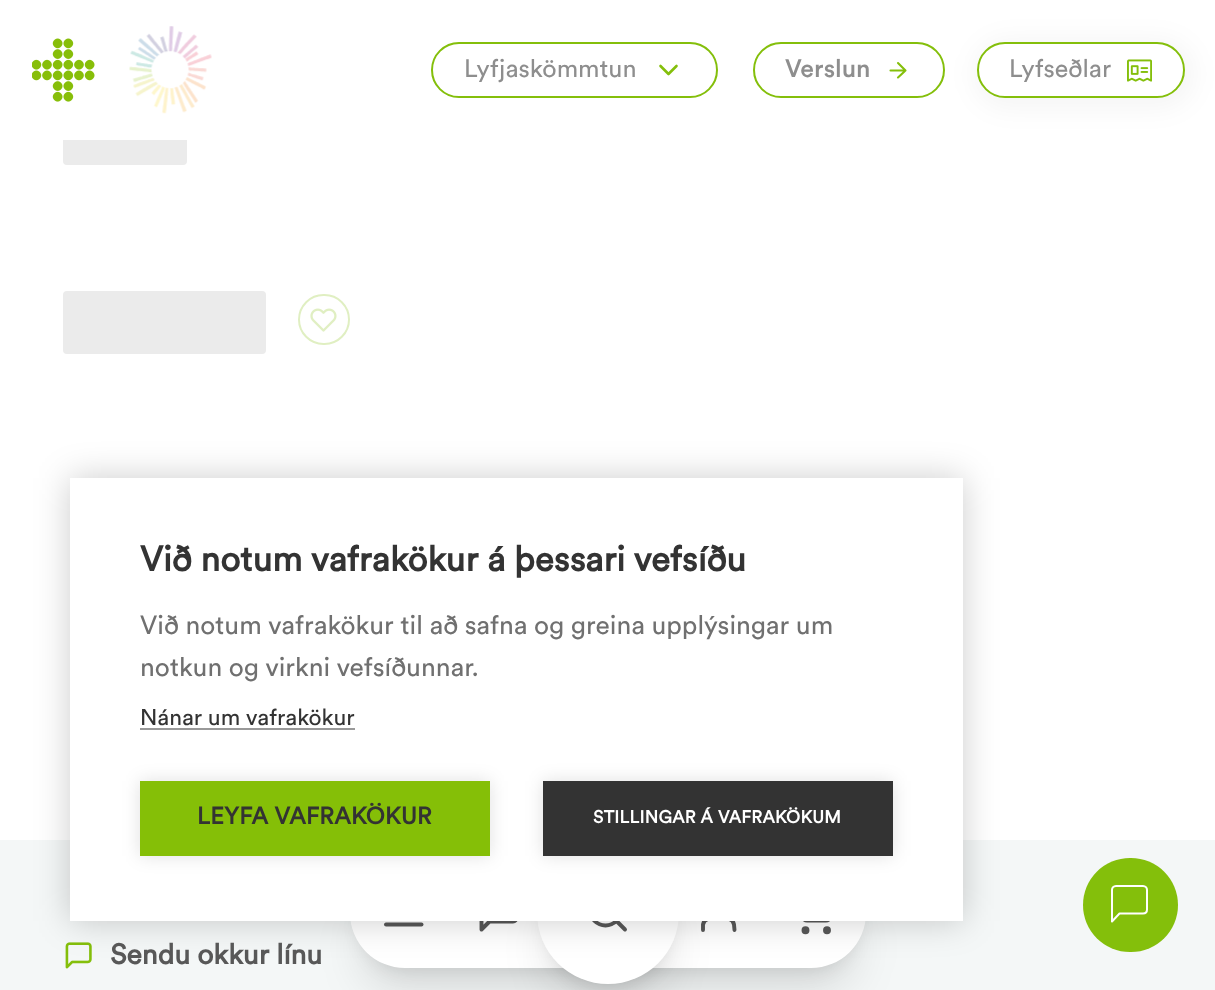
<?xml version="1.0" encoding="UTF-8"?>
<svg xmlns="http://www.w3.org/2000/svg" xmlns:xlink="http://www.w3.org/1999/xlink" width="1215" height="990">
  <rect width="100%" height="100%" fill="#ffffff" />
  <rect x="63" y="119" width="124" height="46" rx="4" fill="#ebebeb" />
  <rect x="63" y="119" width="124" height="21" fill="#ffffff" />
  <image x="32" y="38" width="63" height="64" xlink:href="image1.png" />
  <image x="129" y="26" width="83" height="88" xlink:href="image2.png" />
  <rect x="432" y="43" width="285" height="54" rx="27" fill="none" stroke="#84bf0b" stroke-width="2" />
  <path d="M 660.5 66 l 8 8 l 8 -8" fill="none" stroke="#84bf0b" stroke-width="2.6" stroke-linecap="round" stroke-linejoin="round" />
  <rect x="754" y="43" width="190" height="54" rx="27" fill="none" stroke="#84bf0b" stroke-width="2" />
  <path d="M 890.5 70.5 h 15 m -7.5 -7.5 l 7.5 7.5 l -7.5 7" fill="none" stroke="#84bf0b" stroke-width="2.1" stroke-linecap="round" stroke-linejoin="round" />
  <rect x="973" y="39" width="222" height="70" rx="35" fill="#000000" fill-opacity="0.04" filter="blur(13px)" />
  <rect x="978" y="43" width="206" height="54" rx="27" fill="#ffffff" stroke="#84bf0b" stroke-width="2" />
  <image x="1127" y="59" width="25" height="23" xlink:href="image3.png" />
  <rect y="840" width="1215" height="150" fill="#f4f7f7" />
  <rect x="361" y="882" width="495" height="89" rx="44.5" fill="#000000" fill-opacity="0.1" filter="blur(9px)" />
  <rect x="359" y="901" width="499" height="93" rx="46.5" fill="#000000" fill-opacity="0.1" filter="blur(22px)" />
  <rect x="350" y="858" width="516" height="110" rx="55" fill="#ffffff" />
  <rect x="548" y="866" width="121" height="121" rx="60.5" fill="#000000" fill-opacity="0.1" filter="blur(9px)" />
  <path d="M 516.5 917.5 c 0 2.5 -1.5 4 -3.5 4 h -23.5 l -8 8 v -31.5 c 0 -2 1.5 -4 4 -4 h 27.5 c 2 0 3.5 2 3.5 4 z" fill="none" stroke="#585858" stroke-width="3.9" stroke-linecap="round" stroke-linejoin="round" />
  <path d="M 734.5 930 l -0.5 -5.5 c -1.5 -7.5 -9.5 -6 -15.5 -6 c -5.5 0 -14 -1.5 -15.5 6 v 5.5" fill="none" stroke="#585858" stroke-width="3.9" stroke-linecap="round" stroke-linejoin="round" />
  <rect x="546" y="886" width="124" height="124" rx="62" fill="#000000" fill-opacity="0.1" filter="blur(22px)" />
  <circle cx="608" cy="913" r="71" fill="#ffffff" />
  <circle cx="605.5" cy="910" r="15.5" fill="none" stroke="#585858" stroke-width="3.9" />
  <path d="M 625 929.5 l -8.5 -8.5" fill="none" stroke="#585858" stroke-width="3.9" stroke-linecap="round" stroke-linejoin="round" />
  <circle cx="805.5" cy="930.2" r="2" fill="none" stroke="#585858" stroke-width="3.9" />
  <circle cx="827" cy="930.2" r="2" fill="none" stroke="#585858" stroke-width="3.9" />
  <path d="M 790 891 h 7.5 l 5.5 26 c 0.5 2 2 3.5 4 3.5 h 19 c 2 0 3.5 -1.5 4 -3.5 l 3 -16 h -33.5" fill="none" stroke="#585858" stroke-width="3.9" stroke-linecap="round" stroke-linejoin="round" />
  <path d="M 386 924.5 h 35.5" fill="none" stroke="#585858" stroke-width="3.9" stroke-linecap="round" stroke-linejoin="round" />
  <rect x="1083" y="858" width="95" height="94" rx="47" fill="#84bf0b" />
  <path d="M 1147 909.5 c 0 2.5 -1.5 4 -4 4 h -23.5 l -7.5 8 v -31.5 c 0 -2 1.5 -4 4 -4 h 27 c 2.5 0 4 2 4 4 z" fill="none" stroke="#ffffff" stroke-width="2" stroke-linecap="round" stroke-linejoin="round" />
  <rect x="63" y="291" width="203" height="63" rx="4" fill="#ebebeb" />
  <rect x="299" y="295" width="50" height="49" rx="24.5" fill="none" stroke="#e0efc2" stroke-width="2" />
  <image x="310" y="308" width="27" height="24" xlink:href="image4.png" />
  <image x="65" y="942" width="27" height="27" xlink:href="image5.png" />
  <rect x="70" y="478" width="893" height="443" fill="#000000" fill-opacity="0.2" filter="blur(17.5px)" />
  <rect x="70" y="478" width="893" height="443" fill="#ffffff" />
  <rect x="140" y="728" width="215" height="2" fill="#999999" />
  <rect x="140" y="781" width="350" height="75" fill="#000000" fill-opacity="0.12" filter="blur(9px)" />
  <rect x="140" y="781" width="350" height="75" fill="#85bf07" />
  <rect x="543" y="781" width="350" height="75" fill="#000000" fill-opacity="0.12" filter="blur(9px)" />
  <rect x="543" y="781" width="350" height="75" fill="#333333" />
  <text x="464" y="77" style="font-family: Circular; font-size: 25px; fill: #8e8e8e">Lyfjaskömmtun</text>
  <text x="785" y="77" style="font-family: Circular; font-size: 25px; font-weight: 500; fill: #8e8e8e">Verslun</text>
  <text x="1009" y="77" style="font-family: Circular; font-size: 25px; fill: #8e8e8e">Lyfseðlar</text>
  <text x="110" y="964" style="font-family: Circular; font-size: 28.25px; font-weight: bold; fill: #585858">Sendu okkur línu</text>
  <text x="140" y="571" style="font-family: Circular; font-size: 35px; font-weight: bold; fill: #333333">Við notum vafrakökur á þessari vefsíðu</text>
  <text x="140" y="634" style="font-family: Circular; font-size: 26.25px; fill: #707070">Við notum vafrakökur til að safna og greina upplýsingar um</text>
  <text x="140" y="676" style="font-family: Circular; font-size: 26.25px; fill: #707070">notkun og virkni vefsíðunnar.</text>
  <text x="140" y="725" style="font-family: Circular; font-size: 22.75px; fill: #333333">Nánar um vafrakökur</text>
  <text x="197" y="824" style="font-family: Circular; font-size: 23.6px; font-weight: bold; letter-spacing: 0.35px; fill: #333333">LEYFA VAFRAKÖKUR</text>
  <text x="593" y="823" style="font-family: Circular; font-size: 17.5px; font-weight: bold; letter-spacing: 0.35px; fill: #ffffff">STILLINGAR Á VAFRAKÖKUM</text>
</svg>
